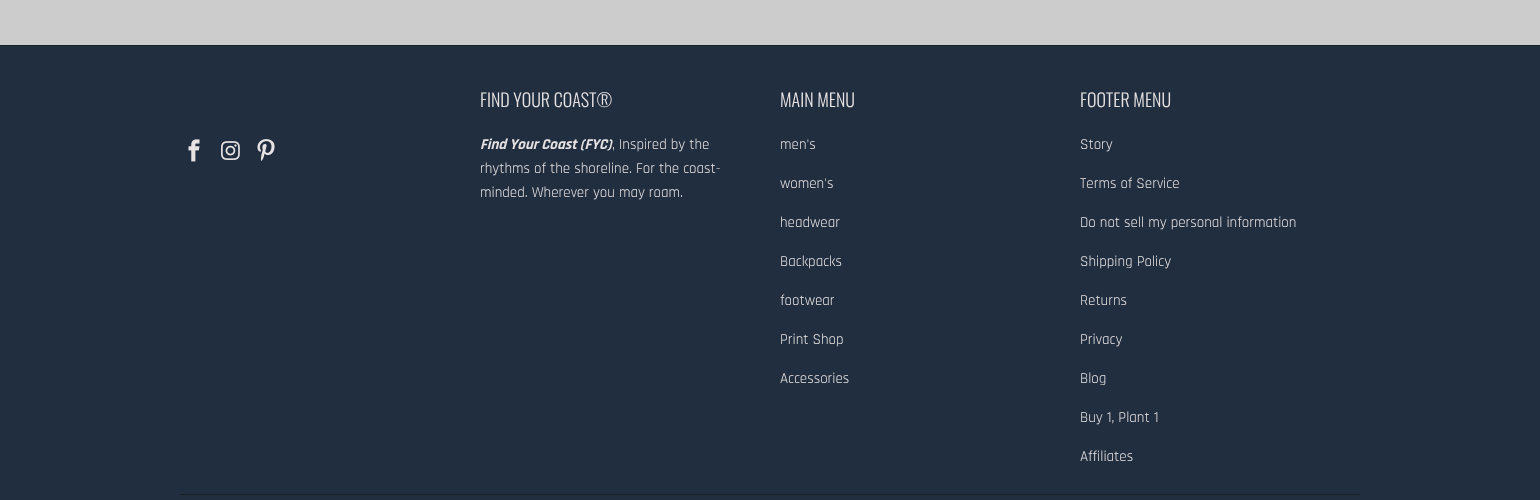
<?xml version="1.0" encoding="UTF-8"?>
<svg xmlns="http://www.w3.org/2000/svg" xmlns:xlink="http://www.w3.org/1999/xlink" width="1540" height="500">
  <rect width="100%" height="100%" fill="#212e40" />
  <rect width="1540" height="45" fill="#cccccc" />
  <rect y="45" width="1540" height="1" fill="#1b1f23" />
  <image x="188" y="139" width="12" height="23" xlink:href="image1.png" />
  <image x="221" y="141" width="19" height="19" xlink:href="image2.png" />
  <image x="257" y="139" width="18" height="22" xlink:href="image3.png" />
  <rect x="180" y="494" width="1180" height="1" fill="#1b1f23" />
  <text x="480" y="107" style="font-family: Oswald; font-size: 18px; font-weight: 300; fill: #e7e3e3">FIND YOUR COAST®</text>
  <text x="480" y="149" style="font-family: Rajdhani; font-size: 15px; font-weight: bold; font-style: italic; fill: #e7e3e3">Find Your Coast (FYC)</text>
  <text x="612" y="149" style="font-family: Rajdhani; font-size: 15px; fill: #e7e3e3">, Inspired by the</text>
  <text x="480" y="173" style="font-family: Rajdhani; font-size: 15px; fill: #e7e3e3">rhythms of the shoreline. For the coast-</text>
  <text x="480" y="197" style="font-family: Rajdhani; font-size: 15px; fill: #e7e3e3">minded. Wherever you may roam.</text>
  <text x="780" y="107" style="font-family: Oswald; font-size: 18px; font-weight: 300; fill: #e7e3e3">MAIN MENU</text>
  <text x="780" y="149" style="font-family: Rajdhani; font-size: 15px; fill: #e7e3e3">men's</text>
  <text x="780" y="188" style="font-family: Rajdhani; font-size: 15px; fill: #e7e3e3">women's</text>
  <text x="780" y="227" style="font-family: Rajdhani; font-size: 15px; fill: #e7e3e3">headwear</text>
  <text x="780" y="266" style="font-family: Rajdhani; font-size: 15px; fill: #e7e3e3">Backpacks</text>
  <text x="780" y="305" style="font-family: Rajdhani; font-size: 15px; fill: #e7e3e3">footwear</text>
  <text x="780" y="344" style="font-family: Rajdhani; font-size: 15px; fill: #e7e3e3">Print Shop</text>
  <text x="780" y="383" style="font-family: Rajdhani; font-size: 15px; fill: #e7e3e3">Accessories</text>
  <text x="1080" y="107" style="font-family: Oswald; font-size: 18px; font-weight: 300; fill: #e7e3e3">FOOTER MENU</text>
  <text x="1080" y="149" style="font-family: Rajdhani; font-size: 15px; fill: #e7e3e3">Story</text>
  <text x="1080" y="188" style="font-family: Rajdhani; font-size: 15px; fill: #e7e3e3">Terms of Service</text>
  <text x="1080" y="227" style="font-family: Rajdhani; font-size: 15px; fill: #e7e3e3">Do not sell my personal information</text>
  <text x="1080" y="266" style="font-family: Rajdhani; font-size: 15px; fill: #e7e3e3">Shipping Policy</text>
  <text x="1080" y="305" style="font-family: Rajdhani; font-size: 15px; fill: #e7e3e3">Returns</text>
  <text x="1080" y="344" style="font-family: Rajdhani; font-size: 15px; fill: #e7e3e3">Privacy</text>
  <text x="1080" y="383" style="font-family: Rajdhani; font-size: 15px; fill: #e7e3e3">Blog</text>
  <text x="1080" y="422" style="font-family: Rajdhani; font-size: 15px; fill: #e7e3e3">Buy 1, Plant 1</text>
  <text x="1080" y="461" style="font-family: Rajdhani; font-size: 15px; fill: #e7e3e3">Affiliates</text>
</svg>
